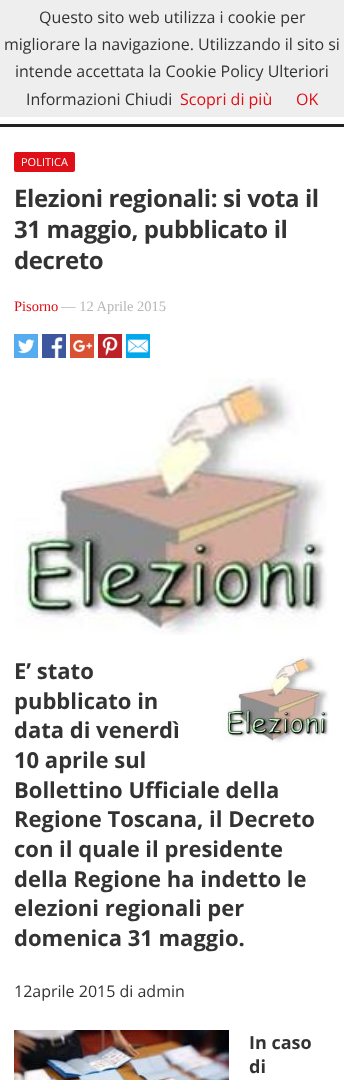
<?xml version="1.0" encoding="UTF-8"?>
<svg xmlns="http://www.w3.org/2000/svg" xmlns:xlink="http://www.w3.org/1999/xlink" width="344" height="1080">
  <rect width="100%" height="100%" fill="#ffffff" />
  <rect width="344" height="117" fill="#eeeeee" />
  <rect y="124" width="344" height="3" fill="#222222" />
  <rect x="14" y="152" width="61" height="20" rx="2" fill="#de0f17" />
  <image x="14" y="334" width="24" height="24" xlink:href="image1.png" />
  <image x="42" y="334" width="24" height="24" xlink:href="image2.png" />
  <image x="70" y="334" width="24" height="24" xlink:href="image3.png" />
  <image x="98" y="334" width="24" height="24" xlink:href="image4.png" />
  <image x="126" y="334" width="24" height="24" xlink:href="image5.png" />
  <image x="14" y="378" width="313" height="257" xlink:href="image6.png" />
  <image x="223" y="656" width="106" height="87" xlink:href="image7.png" />
  <image x="14" y="1030" width="215" height="50" xlink:href="image8.png" />
  <text x="39" y="23" style="font-family: Open Sans; font-size: 16px; fill: #333333">Questo sito web utilizza i cookie per</text>
  <text x="4" y="50" style="font-family: Open Sans; font-size: 16px; fill: #333333">migliorare la navigazione. Utilizzando il sito si</text>
  <text x="15" y="77" style="font-family: Open Sans; font-size: 16px; fill: #333333">intende accettata la Cookie Policy Ulteriori</text>
  <text x="26" y="105" style="font-family: Open Sans; font-size: 16px; fill: #333333">Informazioni Chiudi</text>
  <text x="180" y="105" style="font-family: Open Sans; font-size: 16px; fill: #de0f17">Scopri di più</text>
  <text x="296" y="105" style="font-family: Open Sans; font-size: 16px; fill: #de0f17">OK</text>
  <text x="21" y="166" style="font-family: Open Sans; font-size: 11px; fill: #ffffff">POLITICA</text>
  <text x="14" y="207" style="font-family: Open Sans; font-size: 24px; font-weight: bold; letter-spacing: -0.4px; fill: #333333">Elezioni regionali: si vota il</text>
  <text x="14" y="238" style="font-family: Open Sans; font-size: 24px; font-weight: bold; letter-spacing: -0.4px; fill: #333333">31 maggio, pubblicato il</text>
  <text x="14" y="269" style="font-family: Open Sans; font-size: 24px; font-weight: bold; letter-spacing: -0.4px; fill: #333333">decreto</text>
  <text x="14" y="311" style="font-family: Liberation Serif; font-size: 14.5px; fill: #de0f17">Pisorno</text>
  <text x="61" y="311" style="font-family: Liberation Serif; font-size: 14.5px; fill: #b7b7b7">— 12 Aprile 2015</text>
  <text x="14" y="679" style="font-family: Open Sans; font-size: 22px; font-weight: bold; fill: #333333">E’ stato</text>
  <text x="14" y="709" style="font-family: Open Sans; font-size: 22px; font-weight: bold; fill: #333333">pubblicato in</text>
  <text x="14" y="738" style="font-family: Open Sans; font-size: 22px; font-weight: bold; fill: #333333">data di venerdì</text>
  <text x="14" y="768" style="font-family: Open Sans; font-size: 22px; font-weight: bold; fill: #333333">10 aprile sul</text>
  <text x="14" y="798" style="font-family: Open Sans; font-size: 22px; font-weight: bold; fill: #333333">Bollettino Ufficiale della</text>
  <text x="14" y="827" style="font-family: Open Sans; font-size: 22px; font-weight: bold; fill: #333333">Regione Toscana, il Decreto</text>
  <text x="14" y="857" style="font-family: Open Sans; font-size: 22px; font-weight: bold; fill: #333333">con il quale il presidente</text>
  <text x="14" y="887" style="font-family: Open Sans; font-size: 22px; font-weight: bold; fill: #333333">della Regione ha indetto le</text>
  <text x="14" y="916" style="font-family: Open Sans; font-size: 22px; font-weight: bold; fill: #333333">elezioni regionali per</text>
  <text x="14" y="946" style="font-family: Open Sans; font-size: 22px; font-weight: bold; fill: #333333">domenica 31 maggio.</text>
  <text x="14" y="997" style="font-family: Open Sans; font-size: 16px; fill: #333333">12aprile 2015 di admin</text>
  <text x="249" y="1049" style="font-family: Open Sans; font-size: 18px; font-weight: bold; fill: #333333">In caso</text>
  <text x="249" y="1073" style="font-family: Open Sans; font-size: 18px; font-weight: bold; fill: #333333">di</text>
</svg>
